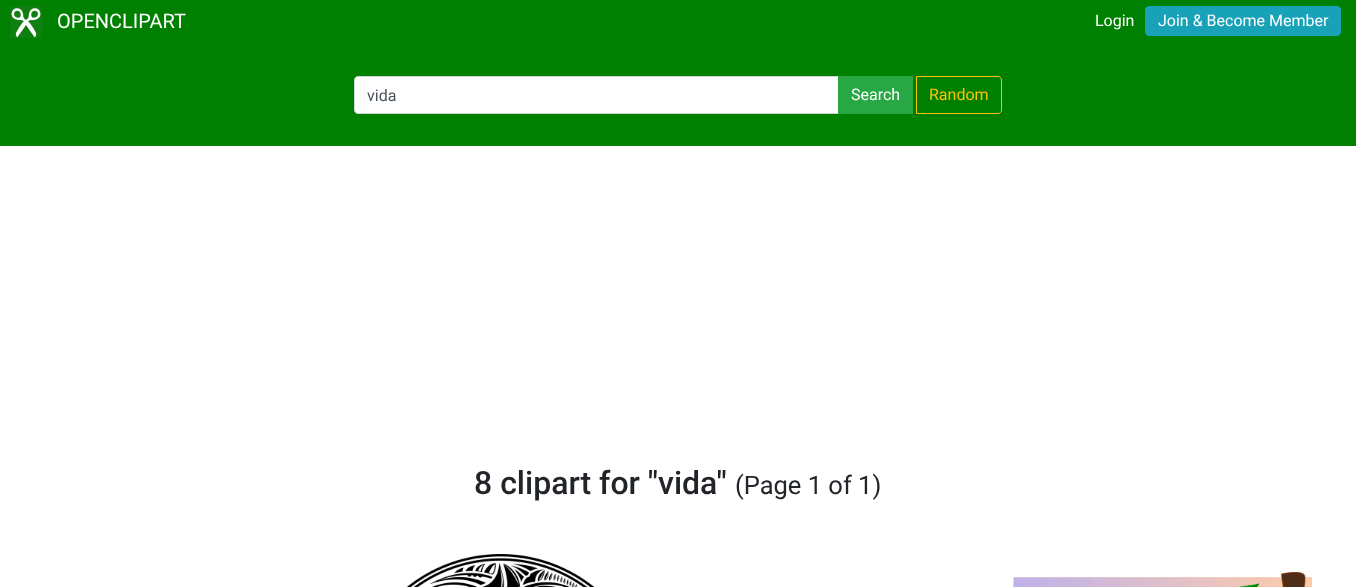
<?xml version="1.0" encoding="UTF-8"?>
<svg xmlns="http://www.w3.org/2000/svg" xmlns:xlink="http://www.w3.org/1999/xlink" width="1356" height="587">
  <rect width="100%" height="100%" fill="#ffffff" />
  <rect width="1356" height="146" fill="#008000" />
  <image x="10" y="6" width="32" height="32" xlink:href="image1.png" />
  <rect x="1145.5" y="6.5" width="195" height="29" rx="3.5" fill="#17a2b8" stroke="#17a2b8" />
  <path d="M 358 76.5 h 480.5 v 37 h -480.5 c -2 0 -3.5 -1.5 -3.5 -3.5 v -30 c 0 -2 1.5 -3.5 3.5 -3.5 z" fill="#ffffff" stroke="#ced4da" />
  <rect x="838" y="76" width="75" height="38" fill="#28a745" />
  <path d="M 916.5 76.5 h 81.5 c 2 0 3.5 1.5 3.5 3.5 v 30 c 0 2 -1.5 3.5 -3.5 3.5 h -81.5 z" fill="none" stroke="#ffc107" />
  <image x="407" y="554" width="187" height="33" xlink:href="image2.png" />
  <image x="1013" y="572" width="299" height="15" xlink:href="image3.png" />
  <text x="57" y="28" style="font-family: Roboto; font-size: 20px; fill: #ffffff">OPENCLIPART</text>
  <text x="1095" y="26" style="font-family: Roboto; font-size: 16px; fill: #ffffff">Login</text>
  <text x="1158" y="26" style="font-family: Roboto; font-size: 16px; fill: #ffffff">Join &amp; Become Member</text>
  <text x="367" y="101" style="font-family: Roboto; font-size: 16px; fill: #495057">vida</text>
  <text x="851" y="100" style="font-family: Roboto; font-size: 16px; fill: #ffffff">Search</text>
  <text x="929" y="100" style="font-family: Roboto; font-size: 16px; fill: #ffc107">Random</text>
  <text x="474" y="494" style="font-family: Roboto; font-size: 32px; font-weight: 500; fill: #212529">8 clipart for "vida"</text>
  <text x="735" y="494" style="font-family: Roboto; font-size: 25.5px; fill: #212529">(Page 1 of 1)</text>
</svg>
